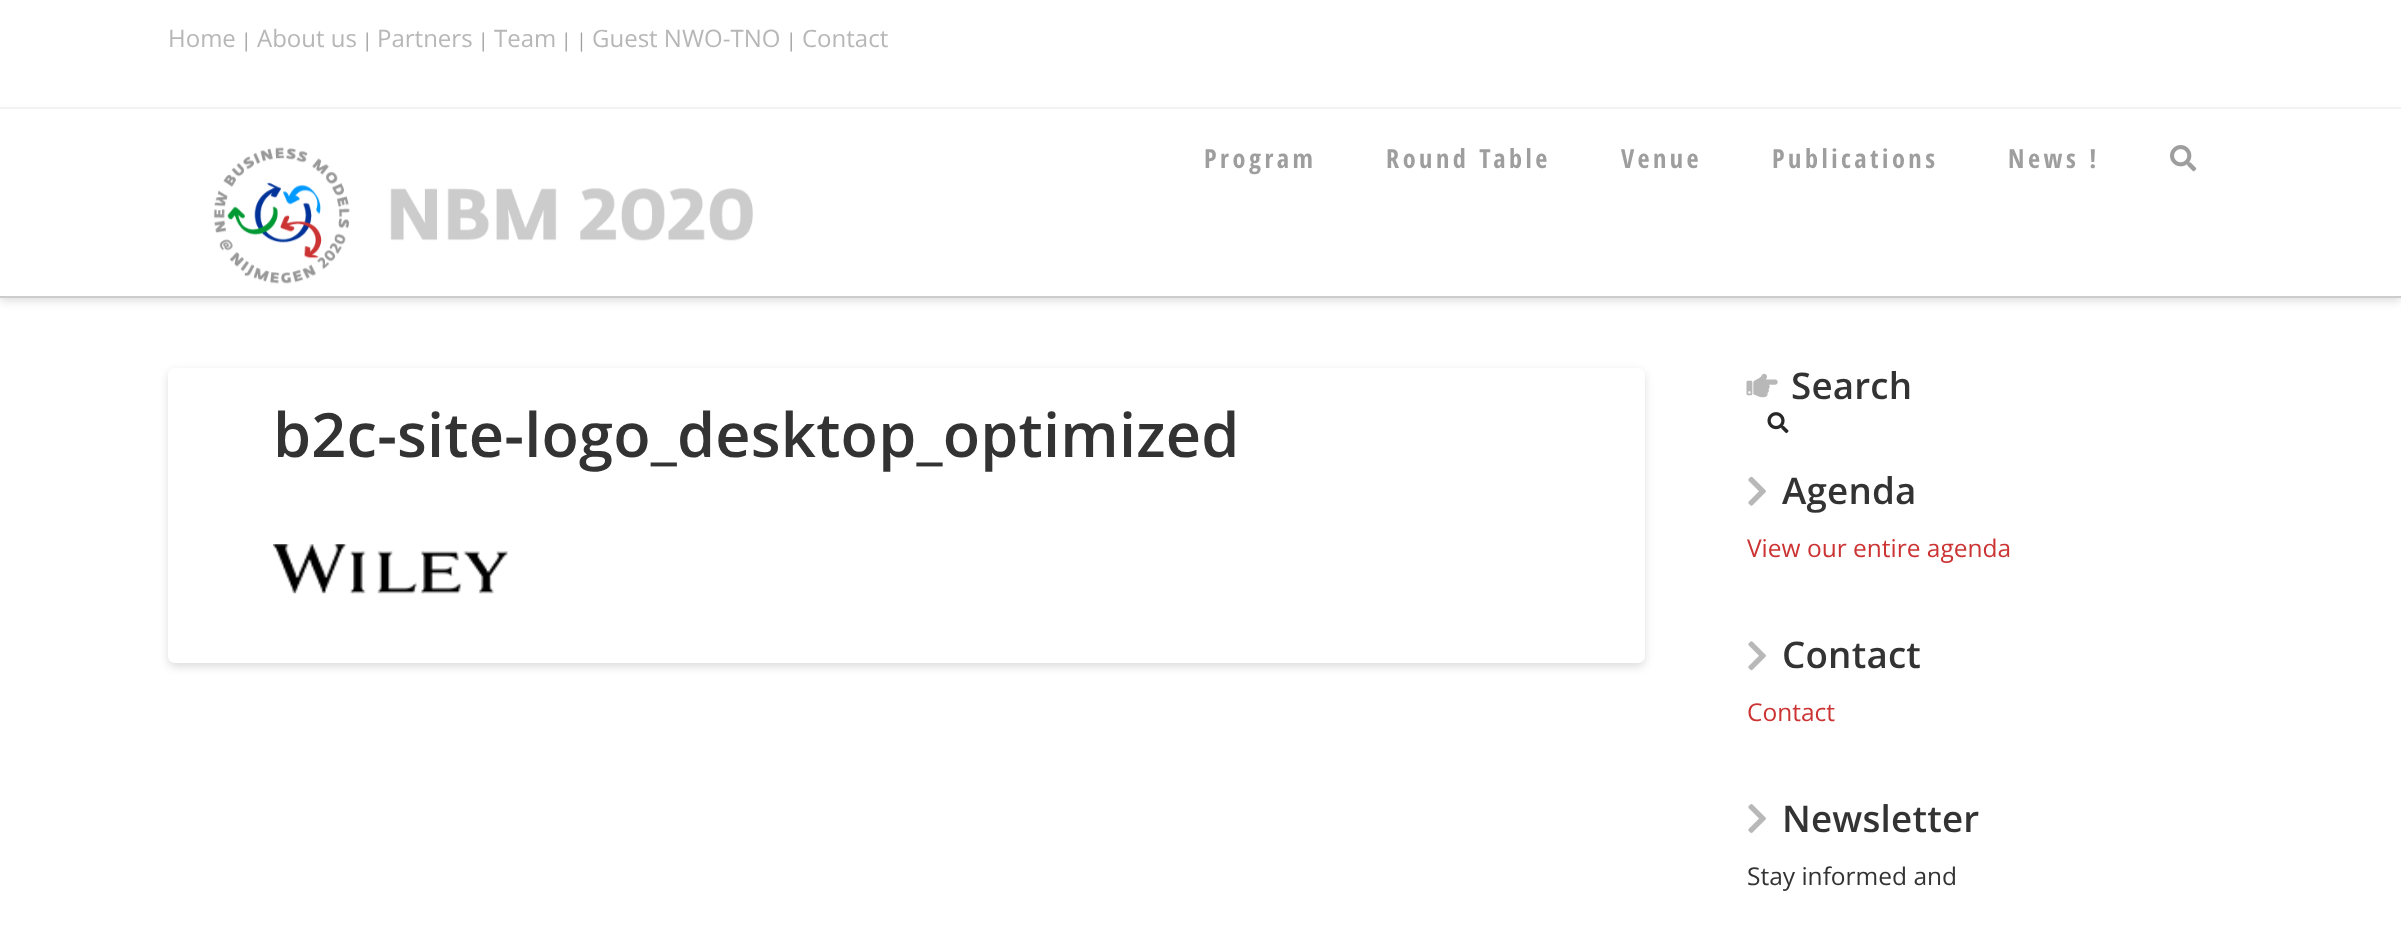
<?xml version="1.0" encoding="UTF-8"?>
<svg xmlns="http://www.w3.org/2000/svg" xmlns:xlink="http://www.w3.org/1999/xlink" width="2401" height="950">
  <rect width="100%" height="100%" fill="#ffffff" />
  <rect y="112" width="2401" height="189" fill="#000000" fill-opacity="0.13" filter="blur(4.5px)" />
  <rect x="2" y="106" width="2397" height="1" fill="#ffffff" />
  <rect y="107" width="2401" height="2" fill="#f2f2f2" />
  <rect y="109" width="2401" height="187" fill="#ffffff" />
  <rect y="296" width="2401" height="2" fill="#cccccc" />
  <image x="213" y="147" width="540" height="137" xlink:href="image1.png" />
  <image x="2170" y="145" width="27" height="27" xlink:href="image2.png" />
  <rect x="168" y="371" width="1477" height="296" rx="7" fill="#000000" fill-opacity="0.13" filter="blur(4.5px)" />
  <rect x="168" y="368" width="1477" height="295" rx="7" fill="#ffffff" />
  <image x="273" y="544" width="235" height="50" xlink:href="image3.png" />
  <image x="1746" y="373" width="32" height="25" xlink:href="image4.png" />
  <image x="1767" y="412" width="22" height="22" xlink:href="image5.png" />
  <image x="1748" y="476" width="18" height="30" xlink:href="image6.png" />
  <image x="1748" y="641" width="18" height="30" xlink:href="image7.png" />
  <image x="1748" y="804" width="18" height="29" xlink:href="image8.png" />
  <text x="168" y="47" style="font-family: Open Sans; font-size: 24px; fill: #b7b7b7">Home</text>
  <text x="241" y="47" style="font-family: Open Sans; font-size: 19px; fill: #9e9e9e">|</text>
  <text x="257" y="47" style="font-family: Open Sans; font-size: 24px; fill: #b7b7b7">About us</text>
  <text x="362" y="47" style="font-family: Open Sans; font-size: 19px; fill: #9e9e9e">|</text>
  <text x="377" y="47" style="font-family: Open Sans; font-size: 24px; fill: #b7b7b7">Partners</text>
  <text x="478" y="47" style="font-family: Open Sans; font-size: 19px; fill: #9e9e9e">|</text>
  <text x="494" y="47" style="font-family: Open Sans; font-size: 24px; fill: #b7b7b7">Team</text>
  <text x="561" y="47" style="font-family: Open Sans; font-size: 19px; fill: #9e9e9e">| |</text>
  <text x="592" y="47" style="font-family: Open Sans; font-size: 24px; fill: #b7b7b7">Guest NWO-TNO</text>
  <text x="786" y="47" style="font-family: Open Sans; font-size: 19px; fill: #9e9e9e">|</text>
  <text x="802" y="47" style="font-family: Open Sans; font-size: 24px; fill: #b7b7b7">Contact</text>
  <text x="1204" y="168" style="font-family: Open Sans Condensed; font-size: 26.25px; font-weight: bold; letter-spacing: 3.5px; fill: #9e9e9e">Program</text>
  <text x="1386" y="168" style="font-family: Open Sans Condensed; font-size: 26.25px; font-weight: bold; letter-spacing: 3.5px; fill: #9e9e9e">Round Table</text>
  <text x="1621" y="168" style="font-family: Open Sans Condensed; font-size: 26.25px; font-weight: bold; letter-spacing: 3.5px; fill: #9e9e9e">Venue</text>
  <text x="1772" y="168" style="font-family: Open Sans Condensed; font-size: 26.25px; font-weight: bold; letter-spacing: 3.5px; fill: #9e9e9e">Publications</text>
  <text x="2008" y="168" style="font-family: Open Sans Condensed; font-size: 26.25px; font-weight: bold; letter-spacing: 3.5px; fill: #9e9e9e">News !</text>
  <text x="273" y="457" style="font-family: Open Sans; font-size: 61.25px; font-weight: 600; letter-spacing: 0.2px; fill: #333333">b2c-site-logo_desktop_optimized</text>
  <text x="1791" y="399" style="font-family: Open Sans; font-size: 36.75px; font-weight: 600; letter-spacing: 0.2px; fill: #333333">Search</text>
  <text x="1782" y="504" style="font-family: Open Sans; font-size: 36.75px; font-weight: 600; letter-spacing: 0.2px; fill: #333333">Agenda</text>
  <text x="1747" y="557" style="font-family: Open Sans; font-size: 24.5px; fill: #cc3333">View our entire agenda</text>
  <text x="1782" y="668" style="font-family: Open Sans; font-size: 36.75px; font-weight: 600; letter-spacing: 0.2px; fill: #333333">Contact</text>
  <text x="1747" y="721" style="font-family: Open Sans; font-size: 24.5px; fill: #cc3333">Contact</text>
  <text x="1782" y="832" style="font-family: Open Sans; font-size: 36.75px; font-weight: 600; letter-spacing: 0.2px; fill: #333333">Newsletter</text>
  <text x="1747" y="885" style="font-family: Open Sans; font-size: 24.5px; fill: #333333">Stay informed and</text>
</svg>
